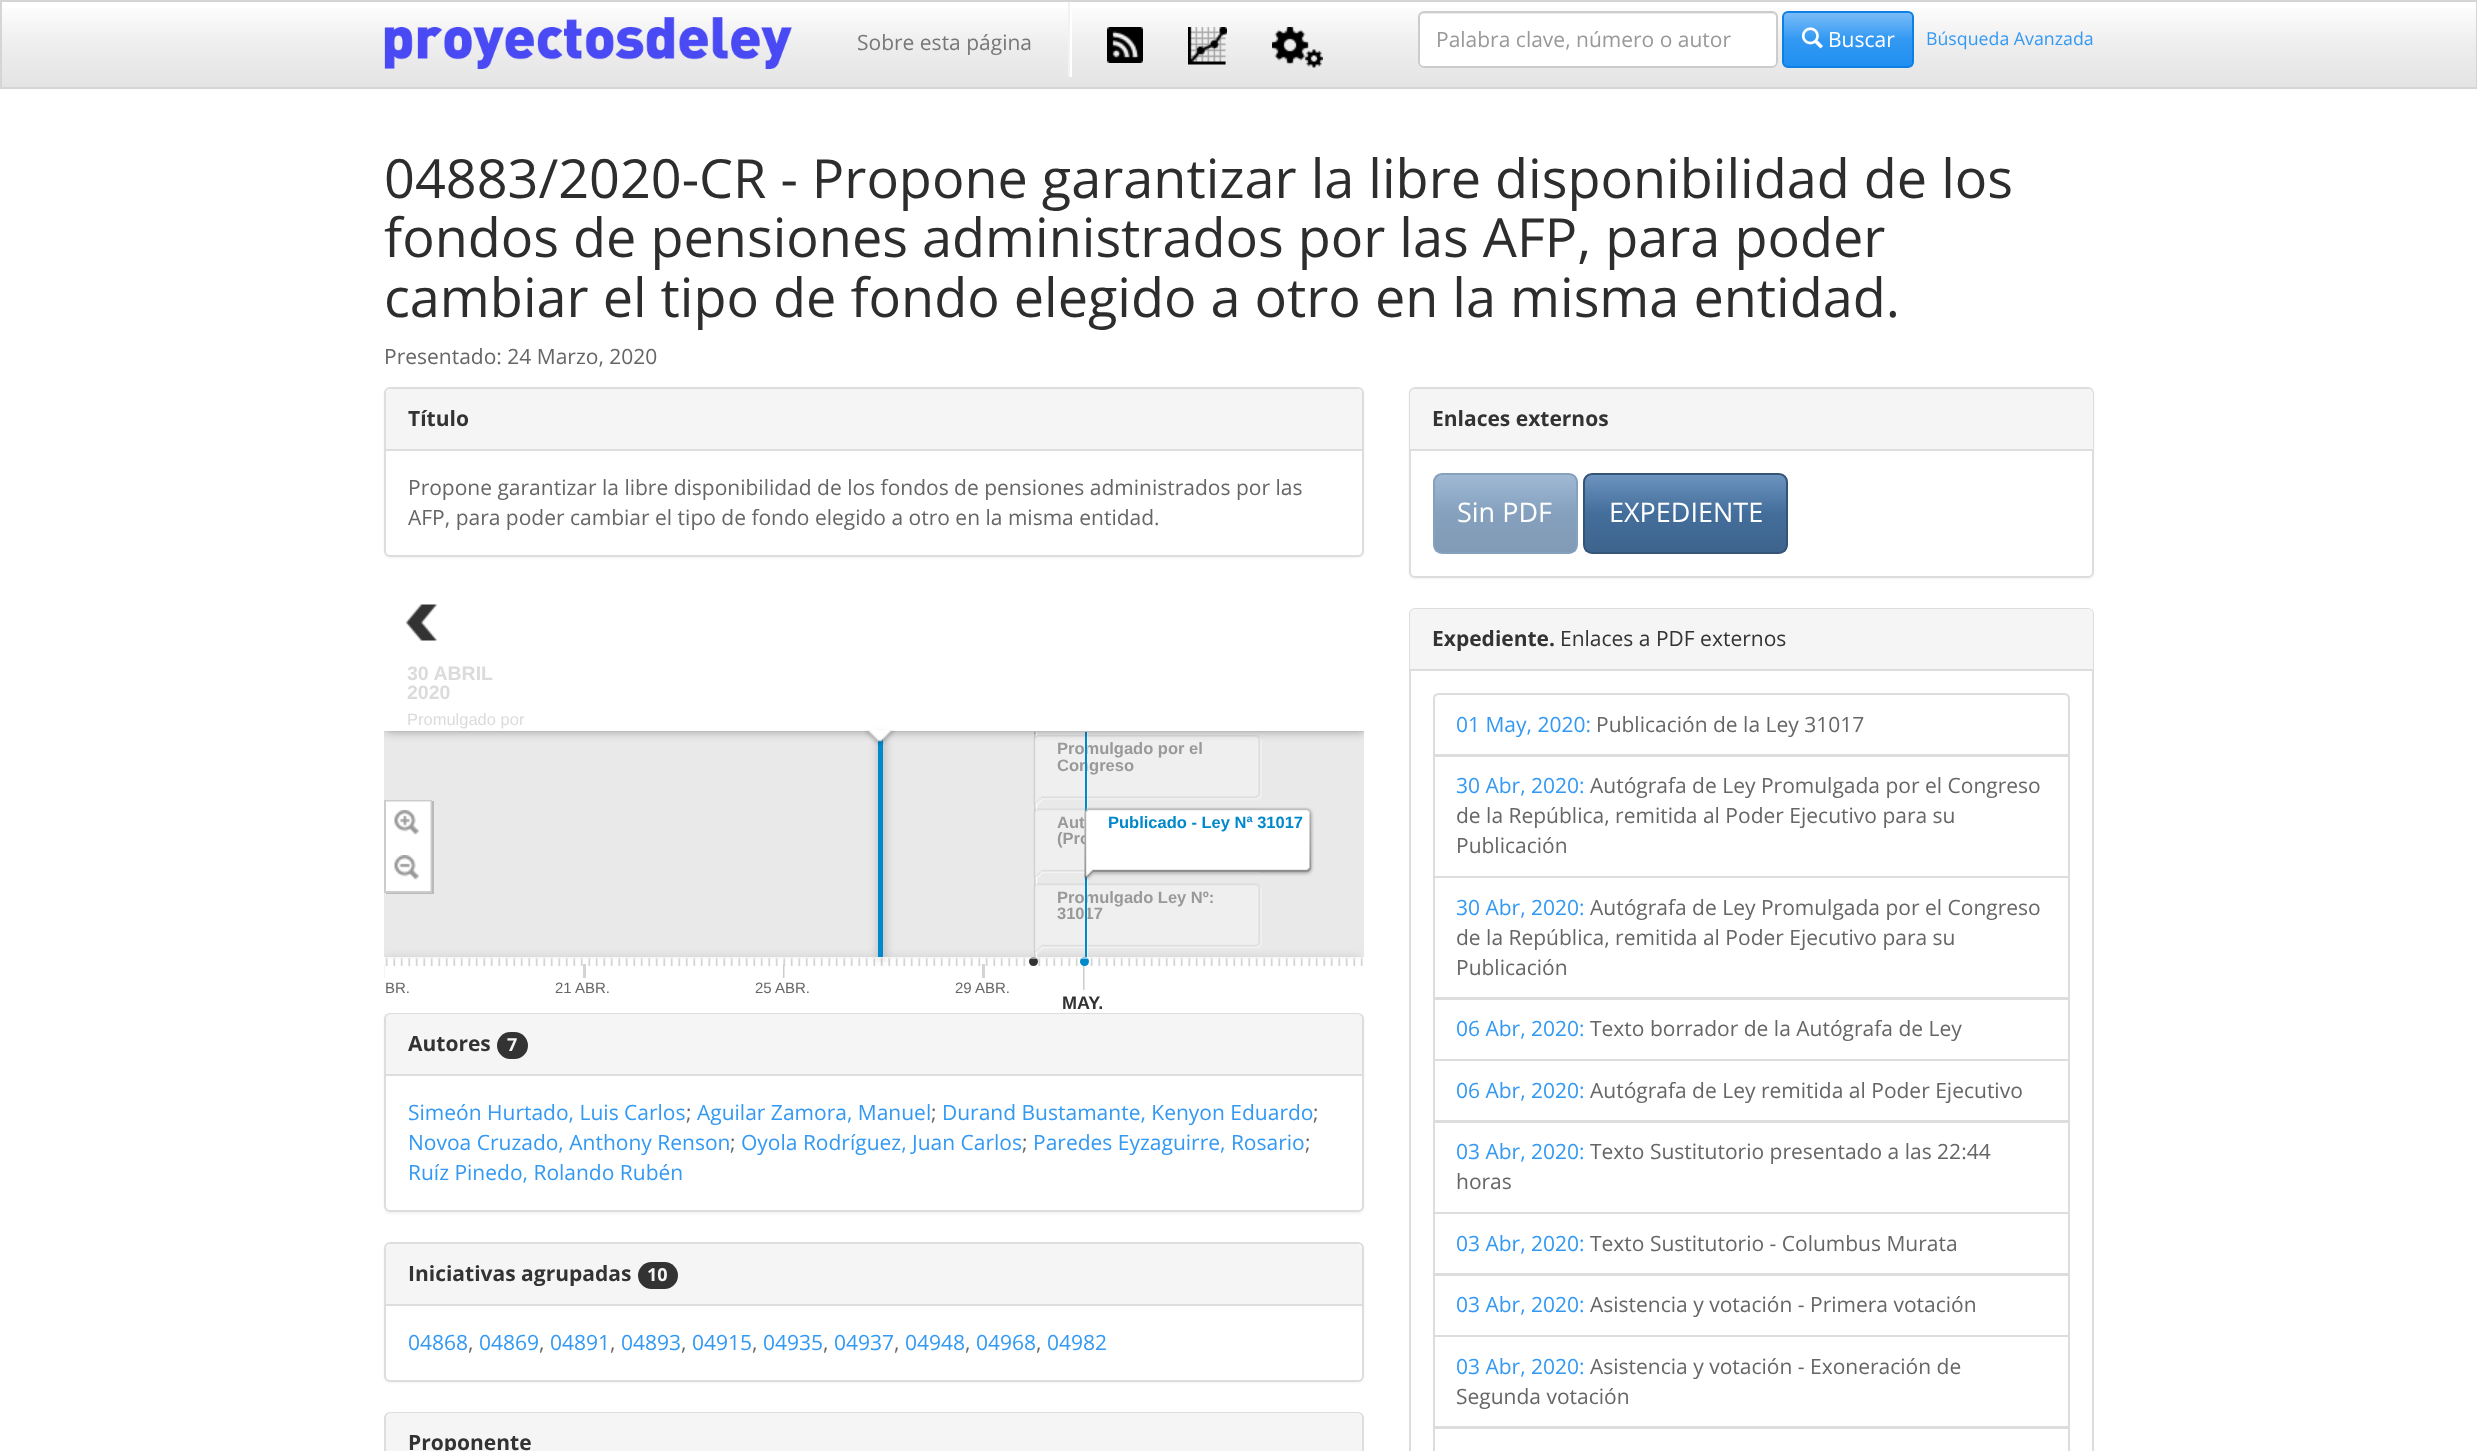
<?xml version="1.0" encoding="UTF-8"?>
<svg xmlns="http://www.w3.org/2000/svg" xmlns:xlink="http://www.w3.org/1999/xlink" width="2477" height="1451">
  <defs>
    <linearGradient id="g1" gradientUnits="userSpaceOnUse" x1="1239" y1="1.5" x2="1239" y2="87"><stop offset="0" stop-color="#ffffff" /><stop offset="0.5" stop-color="#eeeeee" /><stop offset="1" stop-color="#e4e4e4" /></linearGradient>
    <clipPath id="clip1"><rect x="1782" y="11" width="132" height="57" rx="6" /></clipPath>
    <linearGradient id="g2" gradientUnits="userSpaceOnUse" x1="1848" y1="12" x2="1848" y2="66"><stop offset="0" stop-color="#7bbdf7" /><stop offset="0.5" stop-color="#3399f3" /><stop offset="1" stop-color="#208ff2" /></linearGradient>
    <clipPath id="clip2"><rect x="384" y="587" width="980" height="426" /></clipPath>
    <clipPath id="clip3"><rect x="1433" y="473" width="145" height="81" rx="9" /></clipPath>
    <linearGradient id="g3" gradientUnits="userSpaceOnUse" x1="1505" y1="474" x2="1505" y2="552"><stop offset="0" stop-color="#a0b9d5" /><stop offset="0.5" stop-color="#85a1be" /><stop offset="1" stop-color="#829ab5" /></linearGradient>
    <clipPath id="clip4"><rect x="1583" y="473" width="205" height="81" rx="9" /></clipPath>
    <linearGradient id="g4" gradientUnits="userSpaceOnUse" x1="1685" y1="474" x2="1685" y2="552"><stop offset="0" stop-color="#6d94bf" /><stop offset="0.5" stop-color="#446e9b" /><stop offset="1" stop-color="#3e648d" /></linearGradient>
    <clipPath id="clip5"><path d="M 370 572 h 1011 v 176 h -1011 z m 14 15 h 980 v 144 h -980 z" clip-rule="evenodd" /></clipPath>
  </defs>
  <rect width="100%" height="100%" fill="#ffffff" />
  <rect x="2" y="8" width="2474" height="79" fill="url(#g1)" />
  <rect x="1" y="1" width="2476" height="87" fill="none" stroke="#d5d5d5" stroke-width="2" />
  <image x="384" y="17" width="408" height="52" xlink:href="image1.png" />
  <rect x="1070" y="2" width="2" height="75" fill="#ffffff" />
  <rect x="1068" y="2" width="2" height="75" fill="#f2f2f2" />
  <image x="1107" y="27" width="36" height="36" xlink:href="image2.png" />
  <image x="1188" y="27" width="39" height="38" xlink:href="image3.png" />
  <image x="1272" y="27" width="51" height="41" xlink:href="image4.png" />
  <rect x="1418" y="11" width="360" height="57" rx="6" fill="#ffffff" />
  <path d="M 1424 14 h 348 c 2 0 4 2 4 4 c 0 -3 -2 -6 -5 -6 h -347 c -3 0 -5 3 -5 6 c 0 -2 2 -4 5 -4 z" fill="#ececec" />
  <rect x="1419" y="12" width="358" height="55" rx="5" fill="none" stroke="#cccccc" stroke-width="2" />
  <g clip-path="url(#clip1)">
    <rect x="1784" y="12" width="129" height="54" fill="url(#g2)" />
  </g>
  <rect x="1783" y="12" width="130" height="55" rx="5" fill="none" stroke="#0e80e5" stroke-width="2" />
  <image x="1801" y="27" width="22" height="22" xlink:href="image5.png" />
  <rect x="384" y="389" width="980" height="169" rx="6" fill="#000000" fill-opacity="0.05" filter="blur(1px)" />
  <rect x="385" y="388" width="978" height="168" rx="5" fill="#ffffff" stroke="#dddddd" stroke-width="2" />
  <path d="M 391 389 h 966 c 3 0 5 2 5 5 v 56 h -976 v -56 c 0 -3 2 -5 5 -5 z" fill="#f5f5f5" />
  <rect x="386" y="449" width="976" height="2" fill="#dddddd" />
  <rect x="384" y="731" width="980" height="1" fill="#e3e3e3" />
  <rect x="384" y="732" width="980" height="225" fill="#e9e9e9" />
  <rect x="384" y="1014" width="980" height="200" rx="6" fill="#000000" fill-opacity="0.05" filter="blur(1px)" />
  <rect x="385" y="1014" width="978" height="197" rx="5" fill="#ffffff" stroke="#dddddd" stroke-width="2" />
  <path d="M 391 1014 h 966 c 3 0 5 2 5 5 v 57 h -976 v -57 c 0 -3 2 -5 5 -5 z" fill="#f5f5f5" />
  <rect x="497" y="1032" width="31" height="27" rx="13.5" fill="#333333" />
  <g clip-path="url(#clip2)">
    <rect x="383" y="957" width="979" height="74" fill="#000000" fill-opacity="0.1" filter="blur(5px)" />
  </g>
  <rect x="384" y="959" width="980" height="54" fill="#ffffff" />
  <rect x="583" y="964" width="3" height="14" fill="#d3d3d3" />
  <image x="783" y="964" width="2" height="14" xlink:href="image13.png" />
  <rect x="982" y="964" width="3" height="14" fill="#d3d3d3" />
  <image x="385" y="957" width="978" height="9" xlink:href="image12.png" />
  <rect x="879" y="734" width="5" height="225" fill="#000000" fill-opacity="0.3" filter="blur(5px)" />
  <rect x="878" y="732" width="5" height="225" fill="#0088cc" />
  <circle cx="1033.5" cy="961.5" r="4.5" fill="#333333" />
  <circle cx="1084.5" cy="961.5" r="4.5" fill="#0088cc" />
  <rect x="384" y="957" width="980" height="2" fill="#ffffff" fill-opacity="0.5" />
  <rect x="1035" y="732" width="2" height="225" fill="#ffffff" fill-opacity="0.5" />
  <rect x="1034" y="732" width="2" height="225" fill="#cccccc" fill-opacity="0.5" />
  <rect x="1034" y="732" width="2" height="2" fill="#0088cc" fill-opacity="0.15" />
  <rect x="1035" y="732" width="2" height="225" fill="#ffffff" fill-opacity="0.5" />
  <rect x="1034" y="732" width="2" height="225" fill="#cccccc" fill-opacity="0.5" />
  <rect x="1034" y="732" width="2" height="2" fill="#0088cc" fill-opacity="0.15" />
  <rect x="1035" y="732" width="2" height="225" fill="#ffffff" fill-opacity="0.5" />
  <rect x="1034" y="732" width="2" height="225" fill="#cccccc" fill-opacity="0.5" />
  <rect x="1034" y="732" width="2" height="2" fill="#0088cc" fill-opacity="0.15" />
  <image x="1033" y="735" width="229" height="71" xlink:href="image8.png" />
  <image x="1033" y="808" width="229" height="71" xlink:href="image9.png" />
  <image x="1033" y="883" width="229" height="71" xlink:href="image11.png" />
  <rect x="384" y="965" width="1" height="13" fill="#f6f6f6" />
  <image x="1083" y="966" width="2" height="24" xlink:href="image14.png" />
  <path d="M 386 892 v 2 h 48 v -93 h -2 v 91 z" fill="#bababa" />
  <rect x="385" y="801" width="46" height="91" fill="#ffffff" stroke="#cccccc" stroke-width="2" />
  <rect x="387" y="802" width="43" height="43" fill="none" stroke="#ffffff" stroke-opacity="0.5" stroke-width="2" />
  <image x="394" y="810" width="25" height="25" xlink:href="image15.png" />
  <rect x="387" y="847" width="43" height="43" fill="none" stroke="#ffffff" stroke-opacity="0.5" stroke-width="2" />
  <image x="394" y="855" width="25" height="25" xlink:href="image16.png" />
  <rect x="386" y="1074" width="976" height="2" fill="#dddddd" />
  <rect x="384" y="1244" width="980" height="139" rx="6" fill="#000000" fill-opacity="0.05" filter="blur(1px)" />
  <rect x="385" y="1243" width="978" height="138" rx="5" fill="#ffffff" stroke="#dddddd" stroke-width="2" />
  <path d="M 391 1244 h 966 c 3 0 5 2 5 5 v 56 h -976 v -56 c 0 -3 2 -5 5 -5 z" fill="#f5f5f5" />
  <rect x="386" y="1304" width="976" height="2" fill="#dddddd" />
  <rect x="638" y="1262" width="40" height="27" rx="13.5" fill="#333333" />
  <rect x="385" y="1413" width="978" height="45" rx="5" fill="none" stroke="#dddddd" stroke-width="2" />
  <path d="M 391 1413 h 966 c 3 0 5 2 5 5 v 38 h -976 v -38 c 0 -3 2 -5 5 -5 z" fill="#f5f5f5" />
  <rect x="1409" y="389" width="685" height="190" rx="6" fill="#000000" fill-opacity="0.05" filter="blur(1px)" />
  <rect x="1410" y="388" width="683" height="189" rx="5" fill="#ffffff" stroke="#dddddd" stroke-width="2" />
  <path d="M 1415 389 h 673 c 3 0 5 2 5 5 v 56 h -683 v -56 c 0 -3 2 -5 5 -5 z" fill="#f5f5f5" />
  <rect x="1410" y="449" width="683" height="2" fill="#dddddd" />
  <g clip-path="url(#clip3)">
    <rect x="1434" y="474" width="143" height="78" fill="url(#g3)" />
  </g>
  <rect x="1434" y="474" width="143" height="79" rx="8" fill="none" stroke="#85a1be" stroke-width="2" />
  <g clip-path="url(#clip4)">
    <rect x="1584" y="474" width="203" height="78" fill="url(#g4)" />
  </g>
  <rect x="1584" y="474" width="203" height="79" rx="8" fill="none" stroke="#345578" stroke-width="2" />
  <rect x="1410" y="609" width="683" height="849" rx="5" fill="none" stroke="#dddddd" stroke-width="2" />
  <path d="M 1415 609 h 673 c 3 0 5 2 5 5 v 57 h -683 v -57 c 0 -3 2 -5 5 -5 z" fill="#f5f5f5" />
  <rect x="1410" y="669" width="683" height="2" fill="#dddddd" />
  <path d="M 1439 694 h 625 c 3 0 5 2 5 5 v 56 h -635 v -56 c 0 -3 2 -5 5 -5 z" fill="none" stroke="#dddddd" stroke-width="2" />
  <rect x="1434" y="756" width="635" height="121" fill="none" stroke="#dddddd" stroke-width="2" />
  <rect x="1434" y="877" width="635" height="121" fill="none" stroke="#dddddd" stroke-width="2" />
  <rect x="1434" y="999" width="635" height="61" fill="none" stroke="#dddddd" stroke-width="2" />
  <rect x="1434" y="1060" width="635" height="61" fill="none" stroke="#dddddd" stroke-width="2" />
  <rect x="1434" y="1122" width="635" height="91" fill="none" stroke="#dddddd" stroke-width="2" />
  <rect x="1434" y="1213" width="635" height="61" fill="none" stroke="#dddddd" stroke-width="2" />
  <rect x="1434" y="1275" width="635" height="61" fill="none" stroke="#dddddd" stroke-width="2" />
  <rect x="1434" y="1336" width="635" height="91" fill="none" stroke="#dddddd" stroke-width="2" />
  <rect x="1434" y="1428" width="635" height="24" fill="none" stroke="#dddddd" stroke-width="2" />
  <text x="857" y="50" style="font-family: Open Sans; font-size: 21px; fill: #777777">Sobre esta página</text>
  <text x="1436" y="47" style="font-family: Open Sans; font-size: 21px; fill: #999999">Palabra clave, número o autor</text>
  <text x="1828" y="47" style="font-family: Open Sans; font-size: 21px; fill: #ffffff">Buscar</text>
  <text x="1926" y="45" style="font-family: Open Sans; font-size: 17.75px; fill: #3399f3">Búsqueda Avanzada</text>
  <text x="384" y="198" style="font-family: Open Sans; font-size: 54px; fill: #2d2d2d">04883/2020-CR - Propone garantizar la libre disponibilidad de los</text>
  <text x="384" y="257" style="font-family: Open Sans; font-size: 54px; fill: #2d2d2d">fondos de pensiones administrados por las AFP, para poder</text>
  <text x="384" y="317" style="font-family: Open Sans; font-size: 54px; fill: #2d2d2d">cambiar el tipo de fondo elegido a otro en la misma entidad.</text>
  <text x="384" y="364" style="font-family: Open Sans; font-size: 21px; fill: #666666">Presentado: 24 Marzo, 2020</text>
  <text x="408" y="426" style="font-family: Open Sans; font-size: 21px; font-weight: bold; fill: #333333">Título</text>
  <text x="408" y="495" style="font-family: Open Sans; font-size: 21px; fill: #666666">Propone garantizar la libre disponibilidad de los fondos de pensiones administrados por las</text>
  <text x="408" y="525" style="font-family: Open Sans; font-size: 21px; fill: #666666">AFP, para poder cambiar el tipo de fondo elegido a otro en la misma entidad.</text>
  <text x="1057" y="754" style="font-family: Liberation Sans; font-size: 16.5px; font-weight: bold; fill: #999999">Promulgado por el</text>
  <text x="1057" y="771" style="font-family: Liberation Sans; font-size: 16.5px; font-weight: bold; fill: #999999">Congreso</text>
  <text x="1057" y="828" style="font-family: Liberation Sans; font-size: 16.5px; font-weight: bold; fill: #999999">Aut</text>
  <text x="1057" y="844" style="font-family: Liberation Sans; font-size: 16.5px; font-weight: bold; fill: #999999">(Pro</text>
  <text x="1057" y="903" style="font-family: Liberation Sans; font-size: 16.5px; font-weight: bold; fill: #999999">Promulgado Ley Nº:</text>
  <text x="1057" y="919" style="font-family: Liberation Sans; font-size: 16.5px; font-weight: bold; fill: #999999">31017</text>
  <rect x="1085" y="732" width="2" height="225" fill="#0088cc" />
  <rect x="1087" y="732" width="1" height="225" fill="#ffffff" fill-opacity="0.5" />
  <g clip-path="url(#clip2)">
    <g clip-path="url(#clip5)">
      <rect x="386" y="588" width="979" height="144" fill="#000000" fill-opacity="0.3" filter="blur(5px)" />
    </g>
  </g>
  <image x="864" y="730" width="32" height="16" xlink:href="image7.png" />
  <image x="406" y="604" width="31" height="37" xlink:href="image6.png" />
  <text x="407" y="725" style="font-family: Liberation Sans; font-size: 16.5px; fill: #dbdbdb">Promulgado por</text>
  <text x="407" y="699" style="font-family: Liberation Sans; font-size: 19.5px; font-weight: bold; fill: #dbdbdb">2020</text>
  <text x="407" y="680" style="font-family: Liberation Sans; font-size: 19.5px; font-weight: bold; fill: #dbdbdb">30 ABRIL</text>
  <image x="1084" y="807" width="230" height="74" xlink:href="image10.png" />
  <text x="1108" y="828" style="font-family: Liberation Sans; font-size: 16.5px; font-weight: bold; fill: #0088cc">Publicado - Ley Nª 31017</text>
  <text x="385" y="993" style="font-family: Liberation Sans; font-size: 15px; fill: #666666">BR.</text>
  <text x="555" y="993" style="font-family: Liberation Sans; font-size: 15px; fill: #666666">21 ABR.</text>
  <text x="755" y="993" style="font-family: Liberation Sans; font-size: 15px; fill: #666666">25 ABR.</text>
  <text x="955" y="993" style="font-family: Liberation Sans; font-size: 15px; fill: #666666">29 ABR.</text>
  <text x="1062" y="1009" style="font-family: Liberation Sans; font-size: 18px; font-weight: bold; fill: #333333">MAY.</text>
  <text x="408" y="1051" style="font-family: Open Sans; font-size: 21px; font-weight: bold; fill: #333333">Autores</text>
  <text x="507" y="1051" style="font-family: Open Sans; font-size: 18px; font-weight: bold; fill: #f5f5f5">7</text>
  <text x="408" y="1120" style="font-family: Open Sans; font-size: 21px; fill: #3399f3">Simeón Hurtado, Luis Carlos</text>
  <text x="686" y="1120" style="font-family: Open Sans; font-size: 21px; fill: #666666">;</text>
  <text x="697" y="1120" style="font-family: Open Sans; font-size: 21px; fill: #3399f3">Aguilar Zamora, Manuel</text>
  <text x="931" y="1120" style="font-family: Open Sans; font-size: 21px; fill: #666666">;</text>
  <text x="942" y="1120" style="font-family: Open Sans; font-size: 21px; fill: #3399f3">Durand Bustamante, Kenyon Eduardo</text>
  <text x="1313" y="1120" style="font-family: Open Sans; font-size: 21px; fill: #666666">;</text>
  <text x="408" y="1150" style="font-family: Open Sans; font-size: 21px; fill: #3399f3">Novoa Cruzado, Anthony Renson</text>
  <text x="730" y="1150" style="font-family: Open Sans; font-size: 21px; fill: #666666">;</text>
  <text x="741" y="1150" style="font-family: Open Sans; font-size: 21px; fill: #3399f3">Oyola Rodríguez, Juan Carlos</text>
  <text x="1022" y="1150" style="font-family: Open Sans; font-size: 21px; fill: #666666">;</text>
  <text x="1033" y="1150" style="font-family: Open Sans; font-size: 21px; fill: #3399f3">Paredes Eyzaguirre, Rosario</text>
  <text x="1305" y="1150" style="font-family: Open Sans; font-size: 21px; fill: #666666">;</text>
  <text x="408" y="1180" style="font-family: Open Sans; font-size: 21px; fill: #3399f3">Ruíz Pinedo, Rolando Rubén</text>
  <text x="408" y="1281" style="font-family: Open Sans; font-size: 21px; font-weight: bold; fill: #333333">Iniciativas agrupadas</text>
  <text x="647" y="1281" style="font-family: Open Sans; font-size: 18px; font-weight: bold; fill: #f5f5f5">10</text>
  <text x="408" y="1350" style="font-family: Open Sans; font-size: 21px; fill: #3399f3">04868</text>
  <text x="468" y="1350" style="font-family: Open Sans; font-size: 21px; fill: #666666">,</text>
  <text x="479" y="1350" style="font-family: Open Sans; font-size: 21px; fill: #3399f3">04869</text>
  <text x="539" y="1350" style="font-family: Open Sans; font-size: 21px; fill: #666666">,</text>
  <text x="550" y="1350" style="font-family: Open Sans; font-size: 21px; fill: #3399f3">04891</text>
  <text x="610" y="1350" style="font-family: Open Sans; font-size: 21px; fill: #666666">,</text>
  <text x="621" y="1350" style="font-family: Open Sans; font-size: 21px; fill: #3399f3">04893</text>
  <text x="681" y="1350" style="font-family: Open Sans; font-size: 21px; fill: #666666">,</text>
  <text x="692" y="1350" style="font-family: Open Sans; font-size: 21px; fill: #3399f3">04915</text>
  <text x="752" y="1350" style="font-family: Open Sans; font-size: 21px; fill: #666666">,</text>
  <text x="763" y="1350" style="font-family: Open Sans; font-size: 21px; fill: #3399f3">04935</text>
  <text x="823" y="1350" style="font-family: Open Sans; font-size: 21px; fill: #666666">,</text>
  <text x="834" y="1350" style="font-family: Open Sans; font-size: 21px; fill: #3399f3">04937</text>
  <text x="894" y="1350" style="font-family: Open Sans; font-size: 21px; fill: #666666">,</text>
  <text x="905" y="1350" style="font-family: Open Sans; font-size: 21px; fill: #3399f3">04948</text>
  <text x="965" y="1350" style="font-family: Open Sans; font-size: 21px; fill: #666666">,</text>
  <text x="976" y="1350" style="font-family: Open Sans; font-size: 21px; fill: #3399f3">04968</text>
  <text x="1036" y="1350" style="font-family: Open Sans; font-size: 21px; fill: #666666">,</text>
  <text x="1047" y="1350" style="font-family: Open Sans; font-size: 21px; fill: #3399f3">04982</text>
  <text x="408" y="1450" style="font-family: Open Sans; font-size: 21px; font-weight: bold; fill: #333333">Proponente</text>
  <text x="1432" y="426" style="font-family: Open Sans; font-size: 21px; font-weight: bold; fill: #333333">Enlaces externos</text>
  <text x="1457" y="522" style="font-family: Open Sans; font-size: 27px; fill: #ffffff">Sin PDF</text>
  <text x="1609" y="522" style="font-family: Open Sans; font-size: 27px; fill: #ffffff">EXPEDIENTE</text>
  <text x="1432" y="646" style="font-family: Open Sans; font-size: 21px; font-weight: bold; fill: #333333">Expediente.</text>
  <text x="1560" y="646" style="font-family: Open Sans; font-size: 21px; fill: #333333">Enlaces a PDF externos</text>
  <text x="1456" y="732" style="font-family: Open Sans; font-size: 21px; fill: #3399f3">01 May, 2020:</text>
  <text x="1596" y="732" style="font-family: Open Sans; font-size: 21px; fill: #666666">Publicación de la Ley 31017</text>
  <text x="1456" y="793" style="font-family: Open Sans; font-size: 21px; fill: #3399f3">30 Abr, 2020:</text>
  <text x="1590" y="793" style="font-family: Open Sans; font-size: 21px; fill: #666666">Autógrafa de Ley Promulgada por el Congreso</text>
  <text x="1456" y="823" style="font-family: Open Sans; font-size: 21px; fill: #666666">de la República, remitida al Poder Ejecutivo para su</text>
  <text x="1456" y="853" style="font-family: Open Sans; font-size: 21px; fill: #666666">Publicación</text>
  <text x="1456" y="915" style="font-family: Open Sans; font-size: 21px; fill: #3399f3">30 Abr, 2020:</text>
  <text x="1590" y="915" style="font-family: Open Sans; font-size: 21px; fill: #666666">Autógrafa de Ley Promulgada por el Congreso</text>
  <text x="1456" y="945" style="font-family: Open Sans; font-size: 21px; fill: #666666">de la República, remitida al Poder Ejecutivo para su</text>
  <text x="1456" y="975" style="font-family: Open Sans; font-size: 21px; fill: #666666">Publicación</text>
  <text x="1456" y="1036" style="font-family: Open Sans; font-size: 21px; fill: #3399f3">06 Abr, 2020:</text>
  <text x="1590" y="1036" style="font-family: Open Sans; font-size: 21px; fill: #666666">Texto borrador de la Autógrafa de Ley</text>
  <text x="1456" y="1098" style="font-family: Open Sans; font-size: 21px; fill: #3399f3">06 Abr, 2020:</text>
  <text x="1590" y="1098" style="font-family: Open Sans; font-size: 21px; fill: #666666">Autógrafa de Ley remitida al Poder Ejecutivo</text>
  <text x="1456" y="1159" style="font-family: Open Sans; font-size: 21px; fill: #3399f3">03 Abr, 2020:</text>
  <text x="1590" y="1159" style="font-family: Open Sans; font-size: 21px; fill: #666666">Texto Sustitutorio presentado a las 22:44</text>
  <text x="1456" y="1189" style="font-family: Open Sans; font-size: 21px; fill: #666666">horas</text>
  <text x="1456" y="1251" style="font-family: Open Sans; font-size: 21px; fill: #3399f3">03 Abr, 2020:</text>
  <text x="1590" y="1251" style="font-family: Open Sans; font-size: 21px; fill: #666666">Texto Sustitutorio - Columbus Murata</text>
  <text x="1456" y="1312" style="font-family: Open Sans; font-size: 21px; fill: #3399f3">03 Abr, 2020:</text>
  <text x="1590" y="1312" style="font-family: Open Sans; font-size: 21px; fill: #666666">Asistencia y votación - Primera votación</text>
  <text x="1456" y="1374" style="font-family: Open Sans; font-size: 21px; fill: #3399f3">03 Abr, 2020:</text>
  <text x="1590" y="1374" style="font-family: Open Sans; font-size: 21px; fill: #666666">Asistencia y votación - Exoneración de</text>
  <text x="1456" y="1404" style="font-family: Open Sans; font-size: 21px; fill: #666666">Segunda votación</text>
</svg>
